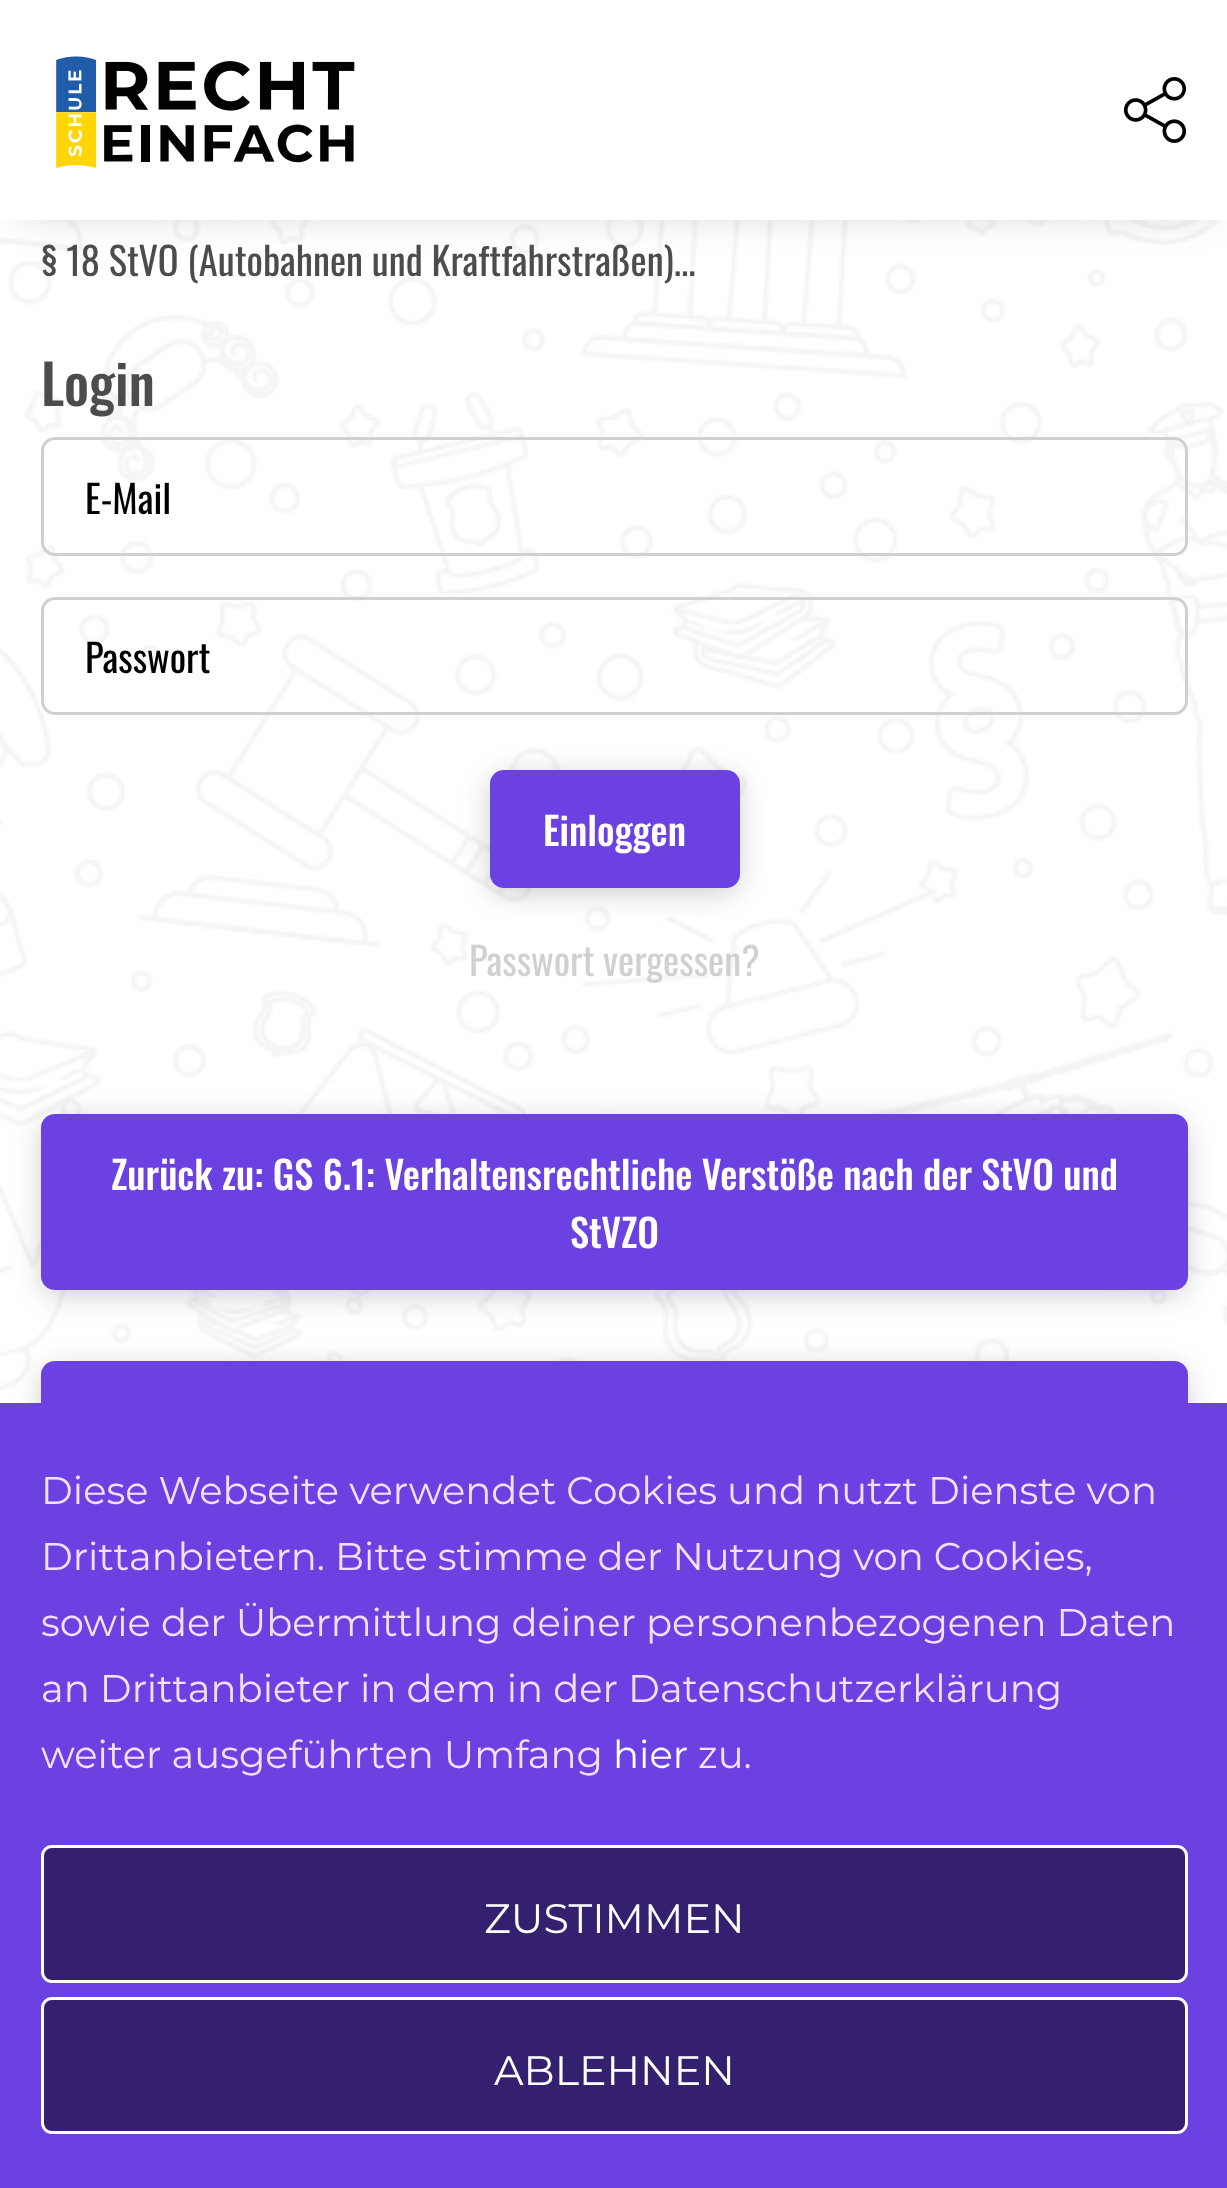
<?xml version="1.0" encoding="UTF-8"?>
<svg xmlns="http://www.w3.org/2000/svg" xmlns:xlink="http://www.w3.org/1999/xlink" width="1227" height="2188">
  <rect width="100%" height="100%" fill="#ffffff" />
  <image x="0" y="220" width="1227" height="1183" xlink:href="image1.png" />
  <rect x="17" y="25" width="1196" height="187" fill="#000000" fill-opacity="0.18" filter="blur(20.5px)" />
  <rect width="1227" height="220" fill="#ffffff" />
  <image x="56" y="56" width="299" height="112" xlink:href="image2.png" />
  <image x="1123" y="77" width="64" height="66" xlink:href="image3.png" />
  <rect x="42.5" y="438.5" width="1144" height="116" rx="12.5" fill="none" stroke="#d0d0d0" stroke-width="3" />
  <rect x="42.5" y="598.5" width="1144" height="115" rx="12.5" fill="none" stroke="#d0d0d0" stroke-width="3" />
  <rect x="492" y="778" width="245" height="113" rx="11" fill="#000000" fill-opacity="0.22" filter="blur(15px)" />
  <rect x="490" y="770" width="250" height="118" rx="14" fill="#6c41e2" />
  <rect x="44" y="1122" width="1141" height="171" rx="11" fill="#000000" fill-opacity="0.22" filter="blur(15px)" />
  <rect x="41" y="1114" width="1147" height="176" rx="14" fill="#6c41e2" />
  <rect x="44" y="1370" width="1141" height="112" rx="11" fill="#000000" fill-opacity="0.22" filter="blur(15px)" />
  <rect x="41" y="1361" width="1147" height="119" rx="14" fill="#6c41e2" />
  <rect y="1403" width="1227" height="785" fill="#6c41e2" />
  <rect x="42.5" y="1846.5" width="1144" height="135" rx="9.5" fill="#351f6f" stroke="#ffffff" stroke-width="3" />
  <rect x="42.5" y="1998.5" width="1144" height="134" rx="9.5" fill="#351f6f" stroke="#ffffff" stroke-width="3" />
  <text x="41" y="276" style="font-family: Oswald; font-size: 38.5px; fill: #4c4c4c">§ 18 StVO (Autobahnen und Kraftfahrstraßen)...</text>
  <text x="41" y="406" style="font-family: Oswald; font-size: 55px; font-weight: 500; fill: #4c4c4c">Login</text>
  <text x="85" y="514" style="font-family: Oswald; font-size: 38.5px; fill: #000000">E-Mail</text>
  <text x="85" y="673" style="font-family: Oswald; font-size: 38.5px; fill: #000000">Passwort</text>
  <text x="543" y="846" style="font-family: Oswald; font-size: 38.5px; font-weight: 500; fill: #ffffff">Einloggen</text>
  <text x="469" y="976" style="font-family: Oswald; font-size: 38.5px; fill: #d0d0d0">Passwort vergessen?</text>
  <text x="111" y="1190" style="font-family: Oswald; font-size: 38.5px; font-weight: 500; fill: #ffffff">Zurück zu: GS 6.1: Verhaltensrechtliche Verstöße nach der StVO und</text>
  <text x="570" y="1248" style="font-family: Oswald; font-size: 38.5px; font-weight: 500; fill: #ffffff">StVZO</text>
  <text x="41" y="1504" style="font-family: Montserrat; font-size: 38.5px; fill: #f3e0ff">Diese Webseite verwendet Cookies und nutzt Dienste von</text>
  <text x="41" y="1570" style="font-family: Montserrat; font-size: 38.5px; fill: #f3e0ff">Drittanbietern. Bitte stimme der Nutzung von Cookies,</text>
  <text x="41" y="1636" style="font-family: Montserrat; font-size: 38.5px; fill: #f3e0ff">sowie der Übermittlung deiner personenbezogenen Daten</text>
  <text x="41" y="1702" style="font-family: Montserrat; font-size: 38.5px; fill: #f3e0ff">an Drittanbieter in dem in der Datenschutzerklärung</text>
  <text x="41" y="1768" style="font-family: Montserrat; font-size: 38.5px; fill: #f3e0ff">weiter ausgeführten Umfang</text>
  <text x="613" y="1768" style="font-family: Montserrat; font-size: 38.5px; fill: #ffffff">hier</text>
  <text x="698" y="1768" style="font-family: Montserrat; font-size: 38.5px; fill: #f3e0ff">zu.</text>
  <text x="484" y="1933" style="font-family: Montserrat; font-size: 41.25px; fill: #ffffff">ZUSTIMMEN</text>
  <text x="494" y="2085" style="font-family: Montserrat; font-size: 41.25px; fill: #ffffff">ABLEHNEN</text>
</svg>
